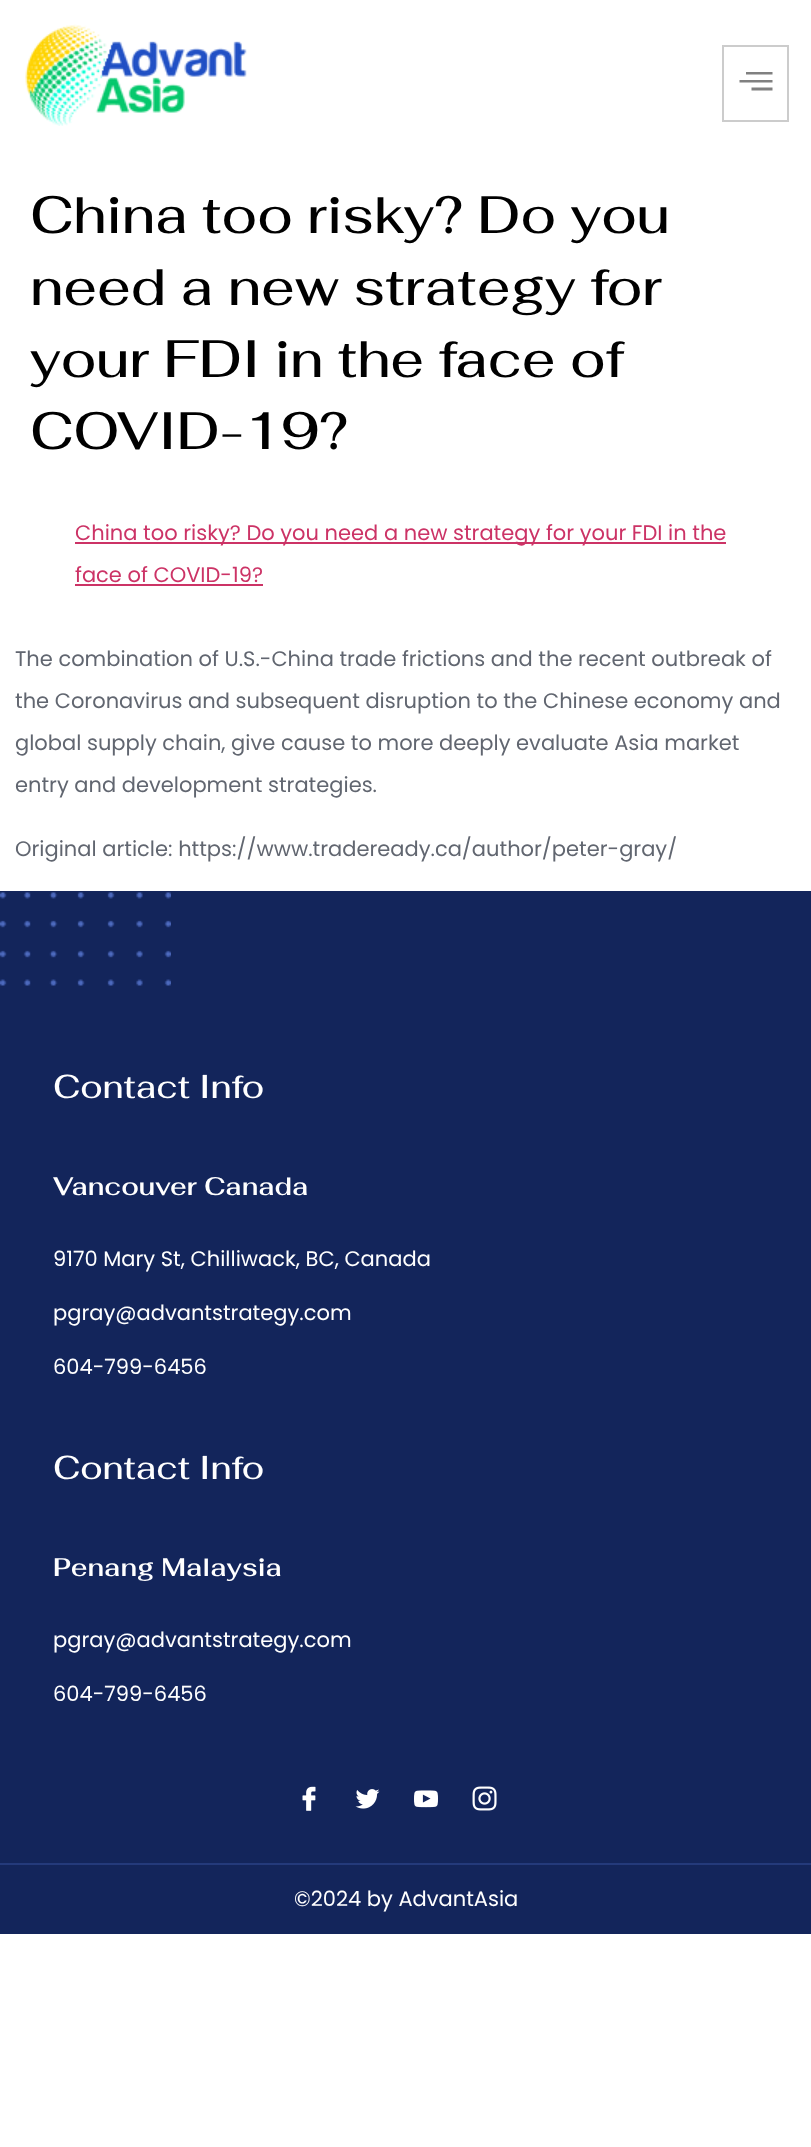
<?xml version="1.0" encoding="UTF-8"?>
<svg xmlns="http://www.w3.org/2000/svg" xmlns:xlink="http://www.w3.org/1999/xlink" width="811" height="2147">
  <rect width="100%" height="100%" fill="#ffffff" />
  <image x="25" y="24" width="222" height="102" xlink:href="image1.png" />
  <rect x="723" y="46" width="65" height="75" fill="none" stroke="#cccccc" stroke-width="2" />
  <path d="M 739.5 82.5 h 33 v -2.5 h -33 z m 12 8 h 21 v -3 h -21 z m -5.5 -18.5 v 2.5 h 26.5 v -2.5 z" fill="#808080" />
  <rect x="75" y="542" width="651" height="2" fill="#cc3366" />
  <rect x="75" y="584" width="188" height="2" fill="#cc3366" />
  <rect y="891" width="811" height="972" fill="#13255b" />
  <image x="0" y="892" width="171" height="94" xlink:href="image2.png" />
  <image x="302" y="1786" width="14" height="25" xlink:href="image3.png" />
  <image x="355" y="1789" width="25" height="20" xlink:href="image4.png" />
  <image x="414" y="1790" width="24" height="18" xlink:href="image5.png" />
  <image x="472" y="1786" width="25" height="25" xlink:href="image6.png" />
  <rect y="1865" width="811" height="69" fill="#13255b" />
  <rect y="1863" width="811" height="2" fill="#243a7b" />
  <text x="30" y="233" style="font-family: Fahkwang; font-size: 52.5px; font-weight: 500; fill: #000000">China too risky? Do you</text>
  <text x="30" y="305" style="font-family: Fahkwang; font-size: 52.5px; font-weight: 500; fill: #000000">need a new strategy for</text>
  <text x="30" y="377" style="font-family: Fahkwang; font-size: 52.5px; font-weight: 500; fill: #000000">your FDI in the face of</text>
  <text x="30" y="449" style="font-family: Fahkwang; font-size: 52.5px; font-weight: 500; fill: #000000">COVID-19?</text>
  <text x="75" y="540" style="font-family: Poppins; font-size: 21px; fill: #cc3366">China too risky? Do you need a new strategy for your FDI in the</text>
  <text x="75" y="582" style="font-family: Poppins; font-size: 21px; fill: #cc3366">face of COVID-19?</text>
  <text x="15" y="666" style="font-family: Poppins; font-size: 21px; fill: #616670">The combination of U.S.-China trade frictions and the recent outbreak of</text>
  <text x="15" y="708" style="font-family: Poppins; font-size: 21px; fill: #616670">the Coronavirus and subsequent disruption to the Chinese economy and</text>
  <text x="15" y="750" style="font-family: Poppins; font-size: 21px; fill: #616670">global supply chain, give cause to more deeply evaluate Asia market</text>
  <text x="15" y="792" style="font-family: Poppins; font-size: 21px; fill: #616670">entry and development strategies.</text>
  <text x="15" y="856" style="font-family: Poppins; font-size: 21px; fill: #616670">Original article: https://www.tradeready.ca/author/peter-gray/</text>
  <text x="53" y="1098" style="font-family: Fahkwang; font-size: 33px; font-weight: 500; fill: #ffffff">Contact Info</text>
  <text x="53" y="1195" style="font-family: Fahkwang; font-size: 25.5px; font-weight: 600; fill: #ffffff">Vancouver Canada</text>
  <text x="53" y="1266" style="font-family: Poppins; font-size: 21px; fill: #ffffff">9170 Mary St, Chilliwack, BC, Canada</text>
  <text x="53" y="1320" style="font-family: Poppins; font-size: 21px; fill: #ffffff">pgray@advantstrategy.com</text>
  <text x="53" y="1374" style="font-family: Poppins; font-size: 21px; fill: #ffffff">604-799-6456</text>
  <text x="53" y="1479" style="font-family: Fahkwang; font-size: 33px; font-weight: 500; fill: #ffffff">Contact Info</text>
  <text x="53" y="1576" style="font-family: Fahkwang; font-size: 25.5px; font-weight: 600; fill: #ffffff">Penang Malaysia</text>
  <text x="53" y="1647" style="font-family: Poppins; font-size: 21px; fill: #ffffff">pgray@advantstrategy.com</text>
  <text x="53" y="1701" style="font-family: Poppins; font-size: 21px; fill: #ffffff">604-799-6456</text>
  <text x="294" y="1906" style="font-family: Poppins; font-size: 21px; fill: #ffffff">©2024 by AdvantAsia</text>
</svg>
